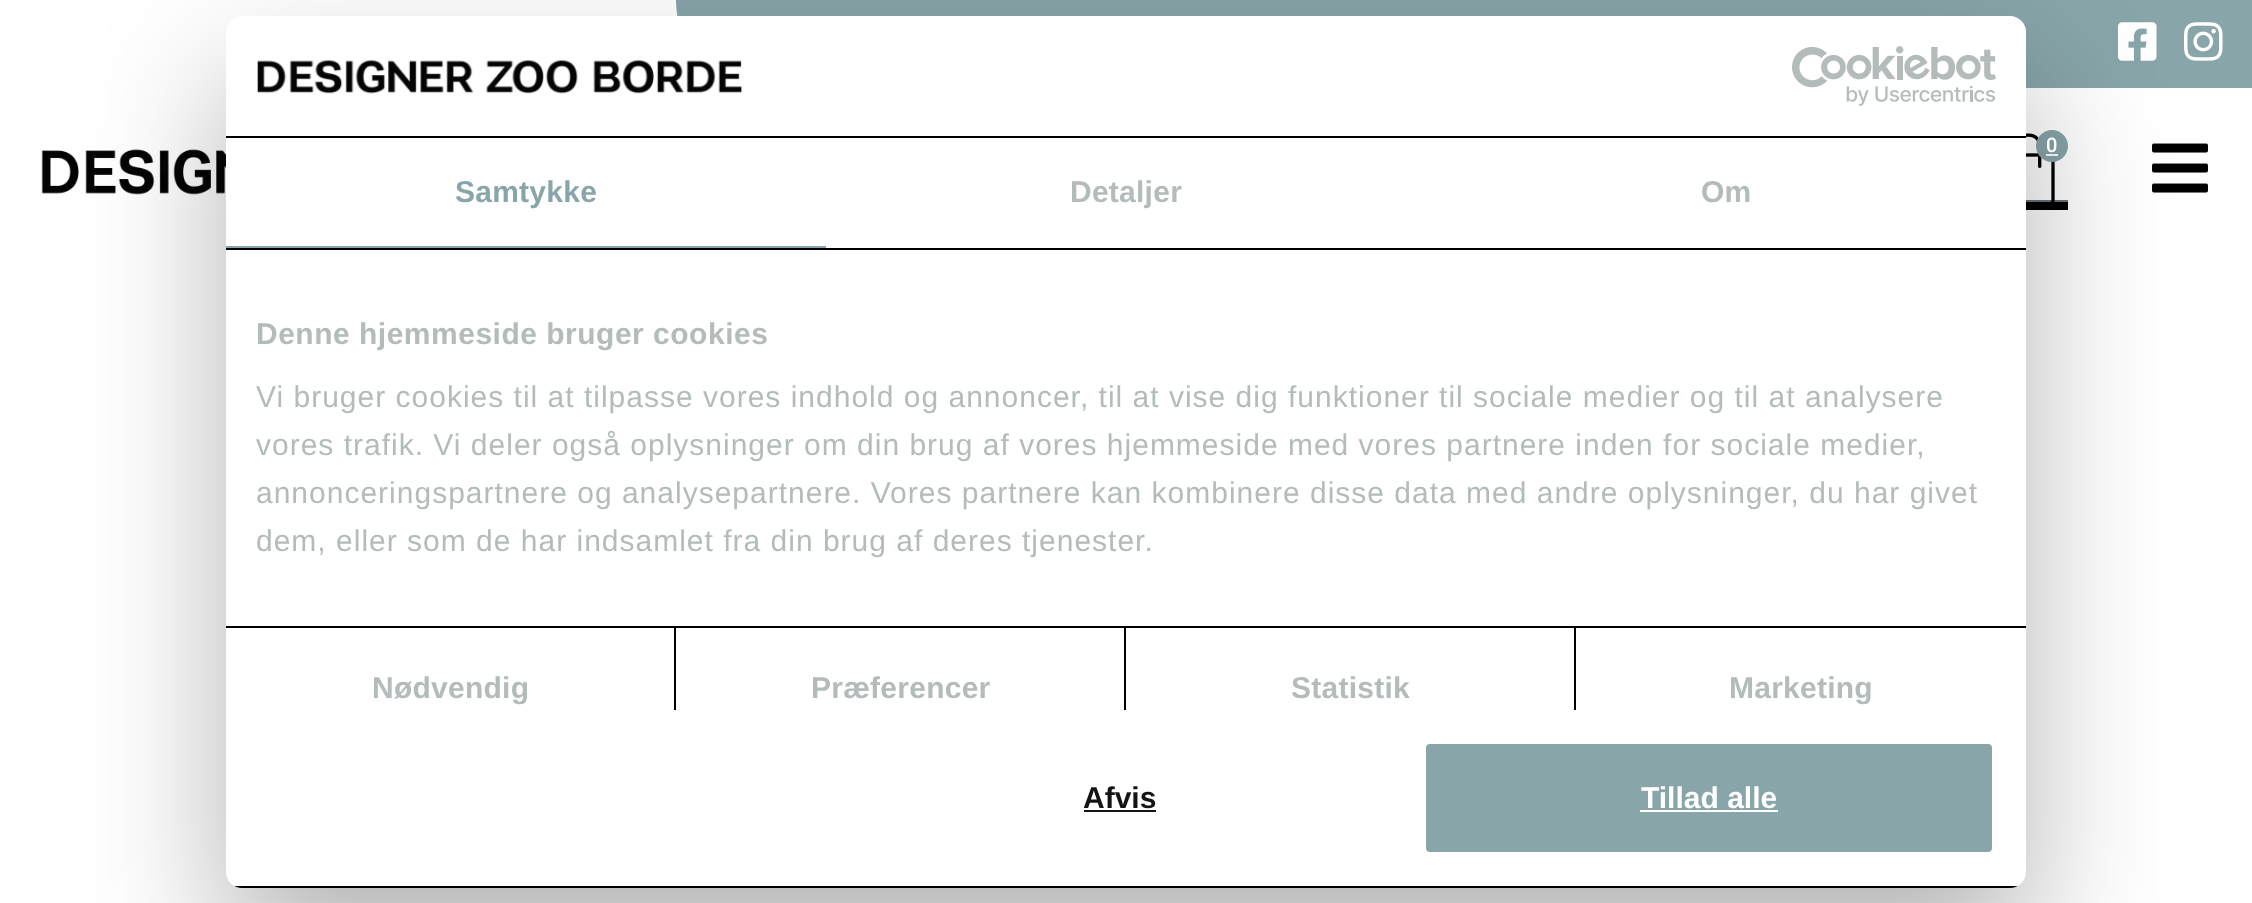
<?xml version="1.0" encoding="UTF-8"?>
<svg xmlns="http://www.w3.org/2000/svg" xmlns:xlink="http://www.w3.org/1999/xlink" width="2252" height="903">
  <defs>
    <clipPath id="clip1"><rect x="226" y="16" width="1800" height="872" rx="16" /></clipPath>
  </defs>
  <rect width="100%" height="100%" fill="#ffffff" />
  <path d="M 676 0 h 1576 v 88 h -1488 c -48.5 0 -88 -39.5 -88 -88 z" fill="#88a5a9" />
  <image x="2118" y="22" width="39" height="39" xlink:href="image1.png" />
  <image x="2184" y="22" width="39" height="39" xlink:href="image2.png" />
  <rect x="2026" y="200" width="42" height="2" fill="#69727d" />
  <image x="2026" y="133" width="29" height="69" xlink:href="image3.png" />
  <rect x="2026" y="202" width="42" height="8" fill="#000000" />
  <circle cx="2052" cy="146" r="16" fill="#88a5a9" />
  <rect x="2046" y="154" width="12" height="2" fill="#ffffff" />
  <image x="2152" y="143" width="56" height="50" xlink:href="image4.png" />
  <image x="41" y="149" width="185" height="46" xlink:href="image5.png" />
  <rect x="226" y="80" width="1800" height="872" rx="16" fill="#000000" fill-opacity="0.3" filter="blur(68px)" />
  <rect x="226" y="16" width="1800" height="872" rx="16" fill="#ffffff" />
  <rect x="226" y="136" width="1800" height="2" fill="#000000" />
  <image x="257" y="59" width="486" height="35" xlink:href="image6.png" />
  <image x="1792" y="46" width="204" height="60" xlink:href="image7.png" />
  <rect x="226" y="248" width="1800" height="2" fill="#000000" />
  <rect x="226" y="246" width="600" height="2" fill="#88a5a9" />
  <rect x="226" y="626" width="1800" height="2" fill="#000000" />
  <rect x="674" y="628" width="2" height="82" fill="#000000" />
  <rect x="1124" y="628" width="2" height="82" fill="#000000" />
  <rect x="1574" y="628" width="2" height="82" fill="#000000" />
  <g clip-path="url(#clip1)">
    <rect x="226" y="886" width="1800" height="2" fill="#000000" />
  </g>
  <rect x="1084" y="810" width="72" height="2" fill="#141414" />
  <rect x="1424" y="742" width="570" height="112" rx="6" fill="#88a5a9" stroke="#ffffff" stroke-width="4" />
  <rect x="1640" y="810" width="138" height="2" fill="#ffffff" />
  <text x="2046" y="152" style="font-family: Roboto; font-size: 20px; font-weight: 500; fill: #ffffff">0</text>
  <text x="455" y="202" style="font-family: Liberation Sans; font-size: 30px; font-weight: bold; letter-spacing: 0.25px; fill: #88a5a9">Samtykke</text>
  <text x="1070" y="202" style="font-family: Liberation Sans; font-size: 30px; font-weight: bold; letter-spacing: 0.25px; fill: #b4bbbb">Detaljer</text>
  <text x="1701" y="202" style="font-family: Liberation Sans; font-size: 30px; font-weight: bold; letter-spacing: 0.25px; fill: #b4bbbb">Om</text>
  <text x="256" y="344" style="font-family: Liberation Sans; font-size: 30px; font-weight: bold; letter-spacing: 0.5px; fill: #b4bbbb">Denne hjemmeside bruger cookies</text>
  <text x="256" y="407" style="font-family: Liberation Sans; font-size: 30px; letter-spacing: 1px; fill: #b4bbbb">Vi bruger cookies til at tilpasse vores indhold og annoncer, til at vise dig funktioner til sociale medier og til at analysere</text>
  <text x="256" y="455" style="font-family: Liberation Sans; font-size: 30px; letter-spacing: 1px; fill: #b4bbbb">vores trafik. Vi deler også oplysninger om din brug af vores hjemmeside med vores partnere inden for sociale medier,</text>
  <text x="256" y="503" style="font-family: Liberation Sans; font-size: 30px; letter-spacing: 1px; fill: #b4bbbb">annonceringspartnere og analysepartnere. Vores partnere kan kombinere disse data med andre oplysninger, du har givet</text>
  <text x="256" y="551" style="font-family: Liberation Sans; font-size: 30px; letter-spacing: 1px; fill: #b4bbbb">dem, eller som de har indsamlet fra din brug af deres tjenester.</text>
  <text x="372" y="698" style="font-family: Liberation Sans; font-size: 30px; font-weight: bold; letter-spacing: 0.25px; fill: #b4bbbb">Nødvendig</text>
  <text x="811" y="698" style="font-family: Liberation Sans; font-size: 30px; font-weight: bold; letter-spacing: 0.25px; fill: #b4bbbb">Præferencer</text>
  <text x="1291" y="698" style="font-family: Liberation Sans; font-size: 30px; font-weight: bold; letter-spacing: 0.25px; fill: #b4bbbb">Statistik</text>
  <text x="1729" y="698" style="font-family: Liberation Sans; font-size: 30px; font-weight: bold; letter-spacing: 0.25px; fill: #b4bbbb">Marketing</text>
  <text x="1083" y="808" style="font-family: Liberation Sans; font-size: 30px; font-weight: bold; fill: #141414">Afvis</text>
  <text x="1641" y="808" style="font-family: Liberation Sans; font-size: 30px; font-weight: bold; fill: #ffffff">Tillad alle</text>
</svg>
